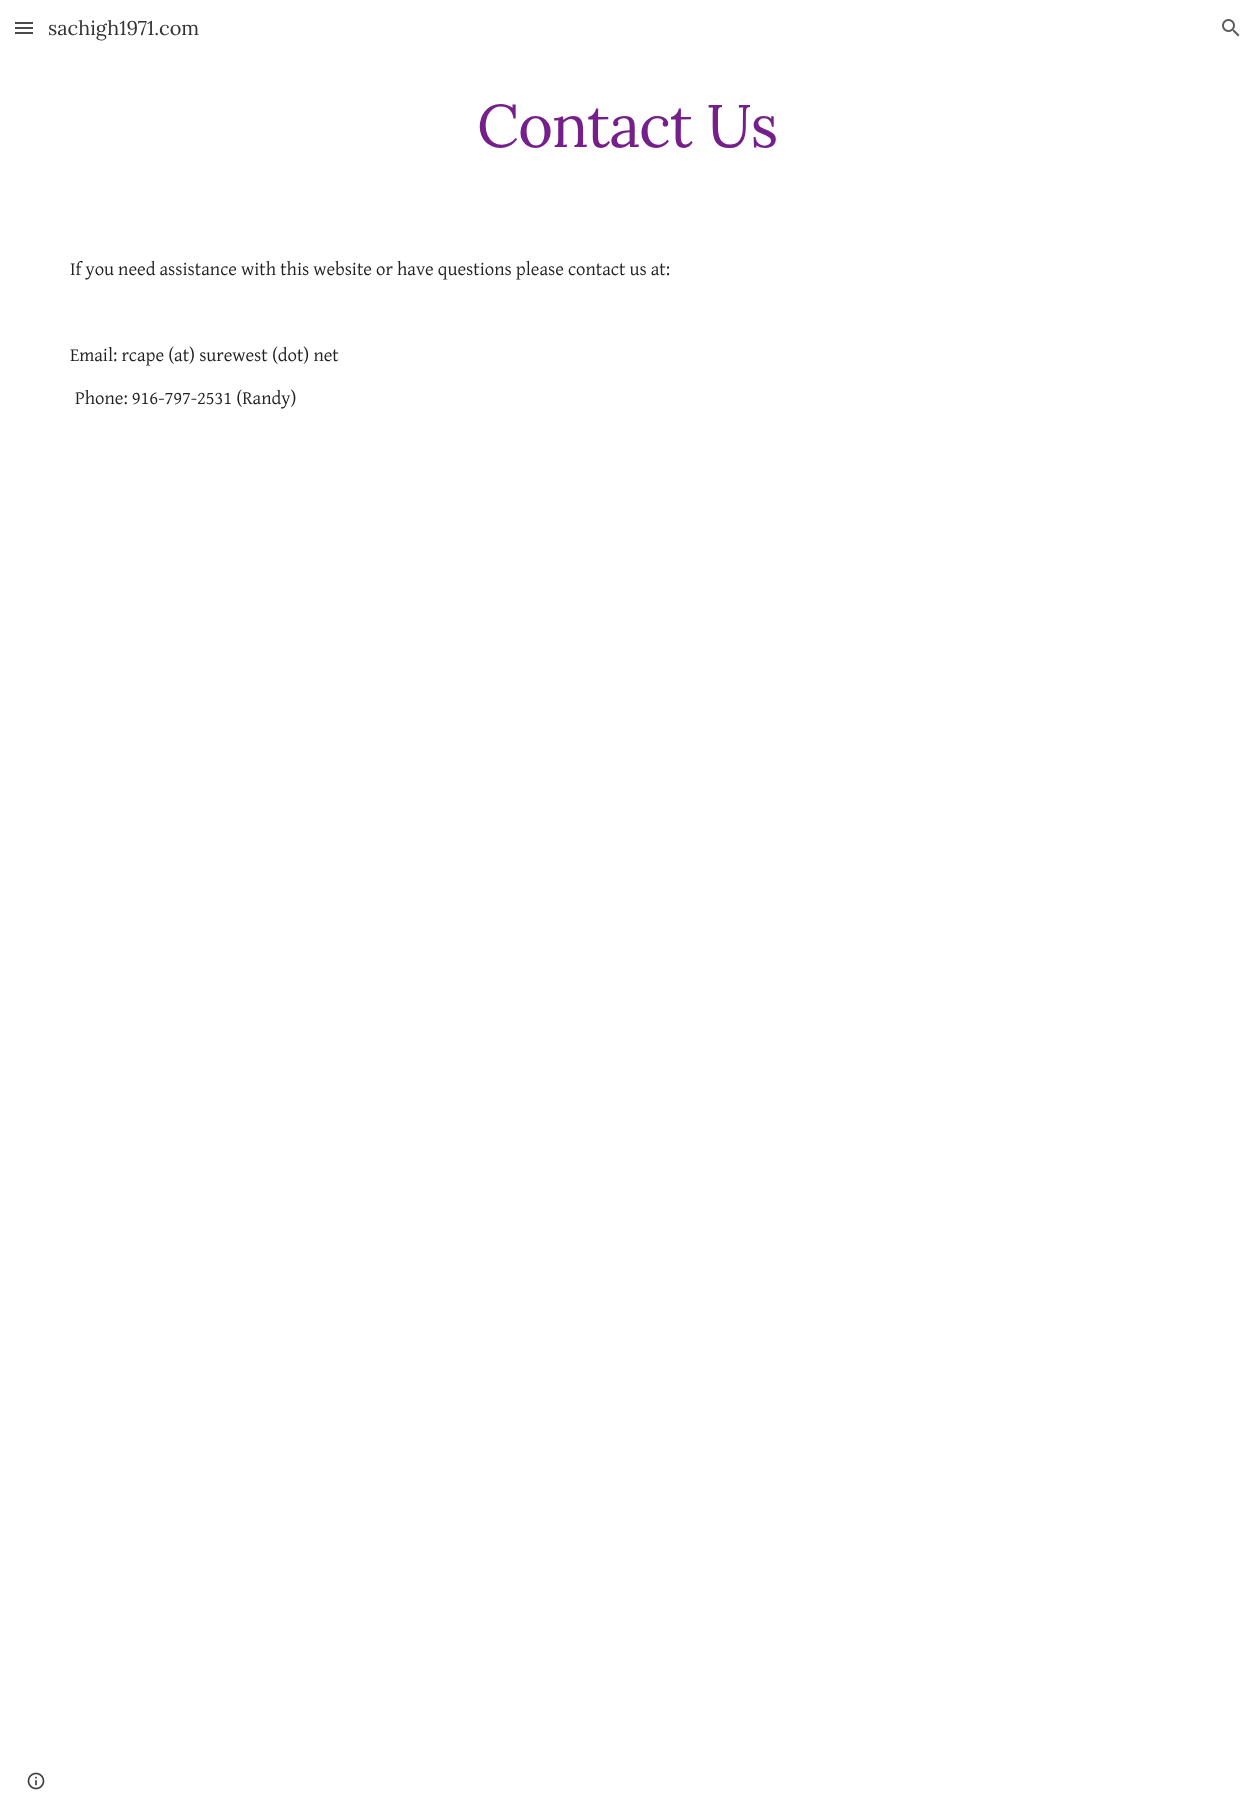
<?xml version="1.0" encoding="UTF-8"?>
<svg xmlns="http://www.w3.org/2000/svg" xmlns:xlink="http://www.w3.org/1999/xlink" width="1255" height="1815">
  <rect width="100%" height="100%" fill="#ffffff" />
  <rect x="15" y="22" width="18" height="2" fill="#4b4b4b" />
  <rect x="15" y="27" width="18" height="2" fill="#4b4b4b" />
  <rect x="15" y="32" width="18" height="2" fill="#4b4b4b" />
  <image x="1222" y="19" width="18" height="18" xlink:href="image1.png" />
  <image x="27" y="1772" width="18" height="18" xlink:href="image2.png" />
  <text x="48" y="35" style="font-family: Lora; font-size: 20px; fill: #333333">sachigh1971.com</text>
  <text x="477" y="147" style="font-family: Lora; font-size: 60px; letter-spacing: -1px; fill: #741f8a">Contact Us</text>
  <text x="70" y="275" style="font-family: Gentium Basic; font-size: 18.7px; fill: #212121">If you need assistance with this website or have questions please contact us at:</text>
  <text x="70" y="361" style="font-family: Gentium Basic; font-size: 18.7px; fill: #212121">Email: rcape (at) surewest (dot) net</text>
  <text x="75" y="404" style="font-family: Gentium Basic; font-size: 18.7px; fill: #212121">Phone: 916-797-2531 (Randy)</text>
</svg>
